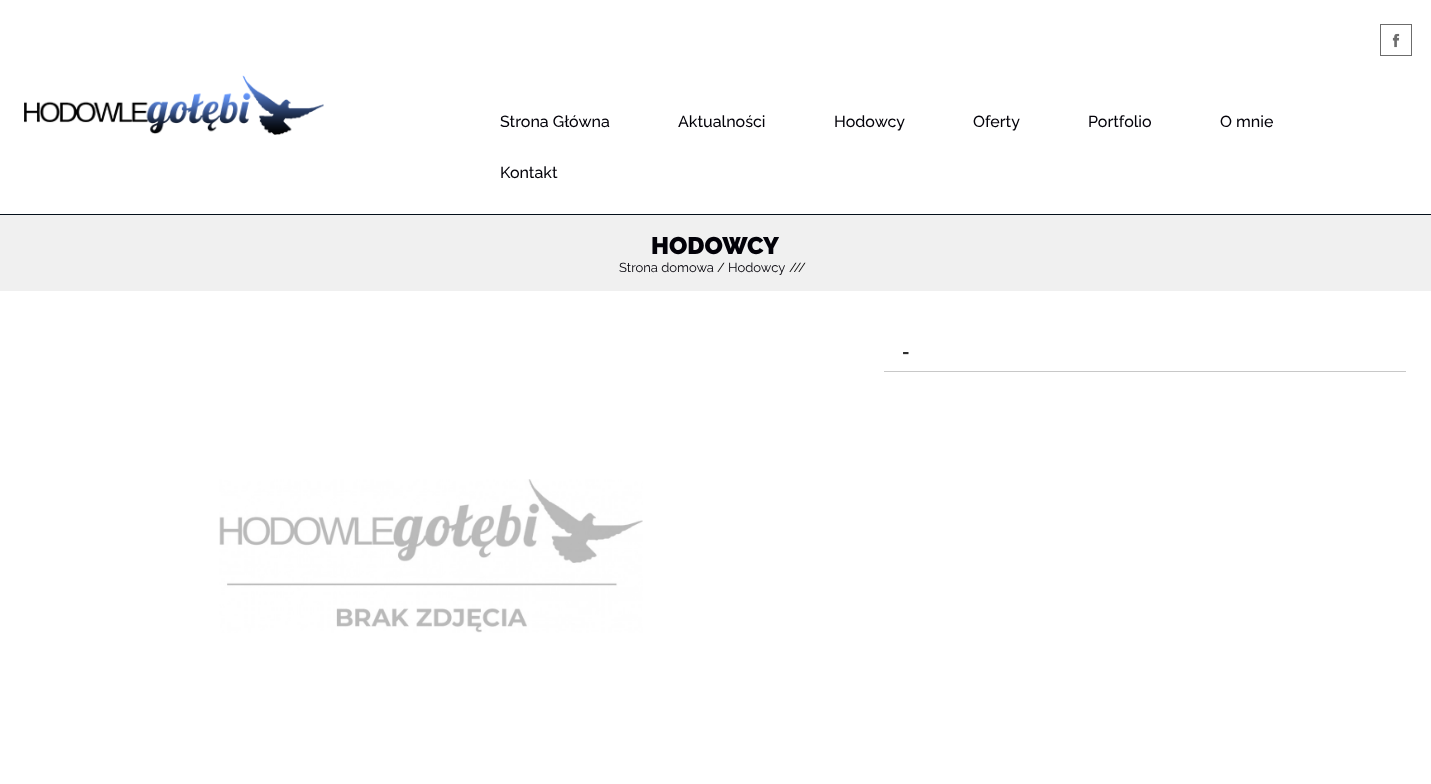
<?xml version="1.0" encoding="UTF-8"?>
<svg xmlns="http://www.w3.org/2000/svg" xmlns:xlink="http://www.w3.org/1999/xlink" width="1431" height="784">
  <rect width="100%" height="100%" fill="#ffffff" />
  <rect y="214" width="1431" height="1" fill="#05101b" />
  <image x="24" y="75" width="300" height="60" xlink:href="image1.png" />
  <rect x="1380.5" y="24.5" width="31" height="31" fill="none" stroke="#6c6c6c" />
  <image x="1392" y="33" width="8" height="15" xlink:href="image2.png" />
  <rect y="215" width="1431" height="76" fill="#f0f0f0" />
  <rect x="884" y="371" width="522" height="1" fill="#c8c8c8" />
  <image x="219" y="479" width="424" height="154" xlink:href="image3.png" />
  <text x="500" y="127" style="font-family: Raleway; font-size: 16px; font-weight: 500; fill: #020108">Strona Główna</text>
  <text x="678" y="127" style="font-family: Raleway; font-size: 16px; font-weight: 500; fill: #020108">Aktualności</text>
  <text x="834" y="127" style="font-family: Raleway; font-size: 16px; font-weight: 500; fill: #020108">Hodowcy</text>
  <text x="973" y="127" style="font-family: Raleway; font-size: 16px; font-weight: 500; fill: #020108">Oferty</text>
  <text x="1088" y="127" style="font-family: Raleway; font-size: 16px; font-weight: 500; fill: #020108">Portfolio</text>
  <text x="1220" y="127" style="font-family: Raleway; font-size: 16px; font-weight: 500; fill: #020108">O mnie</text>
  <text x="500" y="178" style="font-family: Raleway; font-size: 16px; font-weight: 500; fill: #020108">Kontakt</text>
  <text x="651" y="254" style="font-family: Raleway; font-size: 24px; font-weight: 900; fill: #020108">HODOWCY</text>
  <text x="619" y="272" style="font-family: Raleway; font-size: 13px; fill: #020108">Strona domowa</text>
  <text x="717" y="272" style="font-family: Raleway; font-size: 13px; fill: #000000">/</text>
  <text x="728" y="272" style="font-family: Raleway; font-size: 13px; fill: #020108">Hodowcy</text>
  <text x="789" y="272" style="font-family: Raleway; font-size: 13px; fill: #000000">///</text>
  <text x="902" y="358" style="font-family: Raleway; font-size: 18px; font-weight: bold; fill: #2e2e2e">-</text>
</svg>
